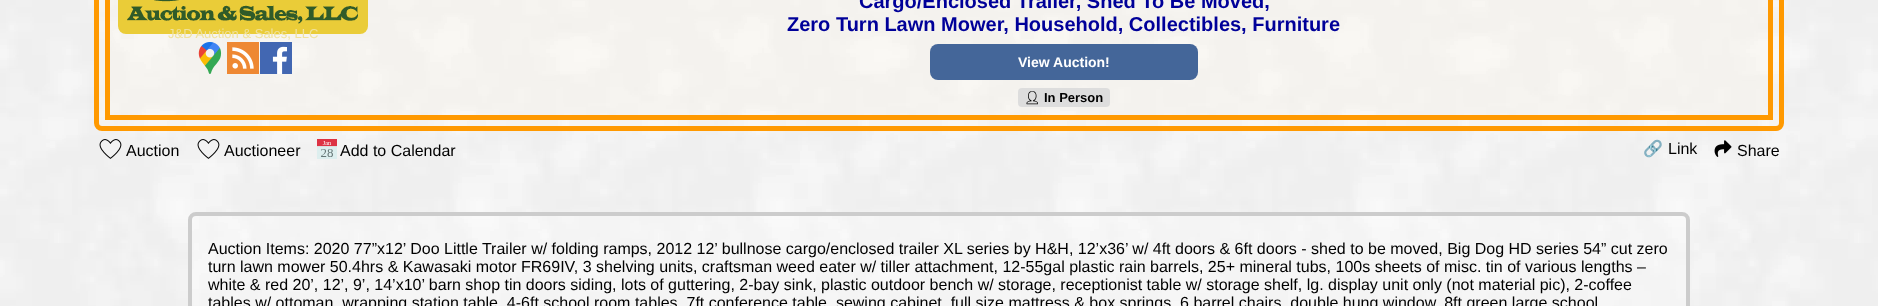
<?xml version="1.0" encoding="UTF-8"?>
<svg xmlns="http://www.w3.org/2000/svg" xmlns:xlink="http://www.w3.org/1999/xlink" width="1878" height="306">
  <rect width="100%" height="100%" fill="#ffffff" />
  <image x="0" y="0" width="1878" height="306" xlink:href="image1.png" />
  <rect x="96.5" y="-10.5" width="1685" height="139" rx="5.5" fill="#fffaeb" fill-opacity="0.3" stroke="#ff9900" stroke-width="5" />
  <rect x="107.5" y="-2.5" width="1663" height="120" fill="none" stroke="#ff9900" stroke-width="5" />
  <image x="118" y="0" width="250" height="34" xlink:href="image2.png" />
  <rect x="930" y="44" width="268" height="36" rx="8" fill="#446699" />
  <rect x="1018" y="88" width="92" height="19" rx="4" fill="#dddddd" />
  <image x="198" y="42" width="24" height="32" xlink:href="image3.png" />
  <rect x="227" y="42" width="32" height="32" fill="#ee8833" />
  <image x="232" y="47" width="22" height="22" xlink:href="image4.png" />
  <rect x="260" y="42" width="32" height="32" fill="#4267b2" />
  <image x="272" y="46" width="15" height="28" xlink:href="image5.png" />
  <image x="99" y="139" width="23" height="20" xlink:href="image6.png" />
  <image x="197" y="139" width="23" height="20" xlink:href="image7.png" />
  <image x="317" y="139" width="20" height="20" xlink:href="image8.png" />
  <image x="1714" y="140" width="18" height="17" xlink:href="image9.png" />
  <rect x="190" y="214" width="1498" height="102" rx="6" fill="#ffffff" fill-opacity="0.3" stroke="#cccccc" stroke-width="4" />
  <text x="168" y="38" style="font-family: Liberation Sans; font-size: 13px; fill: #f0e29c">J&amp;D Auction &amp; Sales, LLC</text>
  <text x="859" y="8" style="font-family: Liberation Sans; font-size: 20px; font-weight: bold; fill: #000099">Cargo/Enclosed Trailer, Shed To Be Moved,</text>
  <text x="787" y="31" style="font-family: Liberation Sans; font-size: 20px; font-weight: bold; fill: #000099">Zero Turn Lawn Mower, Household, Collectibles, Furniture</text>
  <text x="1018" y="67" style="font-family: Liberation Sans; font-size: 14px; font-weight: bold; fill: #ffffff">View Auction!</text>
  <text x="1024" y="102" style="font-family: Noto Emoji; font-size: 13px; font-weight: bold; fill: #000000">👤︎</text>
  <text x="1044" y="102" style="font-family: Liberation Sans; font-size: 13px; font-weight: bold; fill: #000000">In Person</text>
  <text x="126" y="156" style="font-family: Liberation Sans; font-size: 16px; fill: #000000">Auction</text>
  <text x="224" y="156" style="font-family: Liberation Sans; font-size: 16px; fill: #000000">Auctioneer</text>
  <text x="340" y="156" style="font-family: Liberation Sans; font-size: 16px; fill: #000000">Add to Calendar</text>
  <text x="1643" y="154" style="font-family: Noto Color Emoji; font-size: 16px; fill: #000000">🔗</text>
  <text x="1668" y="154" style="font-family: Liberation Sans; font-size: 16px; fill: #000000">Link</text>
  <text x="1737" y="156" style="font-family: Liberation Sans; font-size: 16px; fill: #000000">Share</text>
  <text x="208" y="254" style="font-family: Liberation Sans; font-size: 16px; fill: #000000">Auction Items: 2020 77”x12’ Doo Little Trailer w/ folding ramps, 2012 12’ bullnose cargo/enclosed trailer XL series by H&amp;H, 12’x36’ w/ 4ft doors &amp; 6ft doors - shed to be moved, Big Dog HD series 54” cut zero</text>
  <text x="208" y="272" style="font-family: Liberation Sans; font-size: 16px; fill: #000000">turn lawn mower 50.4hrs &amp; Kawasaki motor FR69IV, 3 shelving units, craftsman weed eater w/ tiller attachment, 12-55gal plastic rain barrels, 25+ mineral tubs, 100s sheets of misc. tin of various lengths –</text>
  <text x="208" y="290" style="font-family: Liberation Sans; font-size: 16px; fill: #000000">white &amp; red 20’, 12’, 9’, 14’x10’ barn shop tin doors siding, lots of guttering, 2-bay sink, plastic outdoor bench w/ storage, receptionist table w/ storage shelf, lg. display unit only (not material pic), 2-coffee</text>
  <text x="208" y="308" style="font-family: Liberation Sans; font-size: 16px; fill: #000000">tables w/ ottoman, wrapping station table, 4-6ft school room tables, 7ft conference table, sewing cabinet, full size mattress &amp; box springs, 6 barrel chairs, double hung window, 8ft green large school</text>
</svg>
